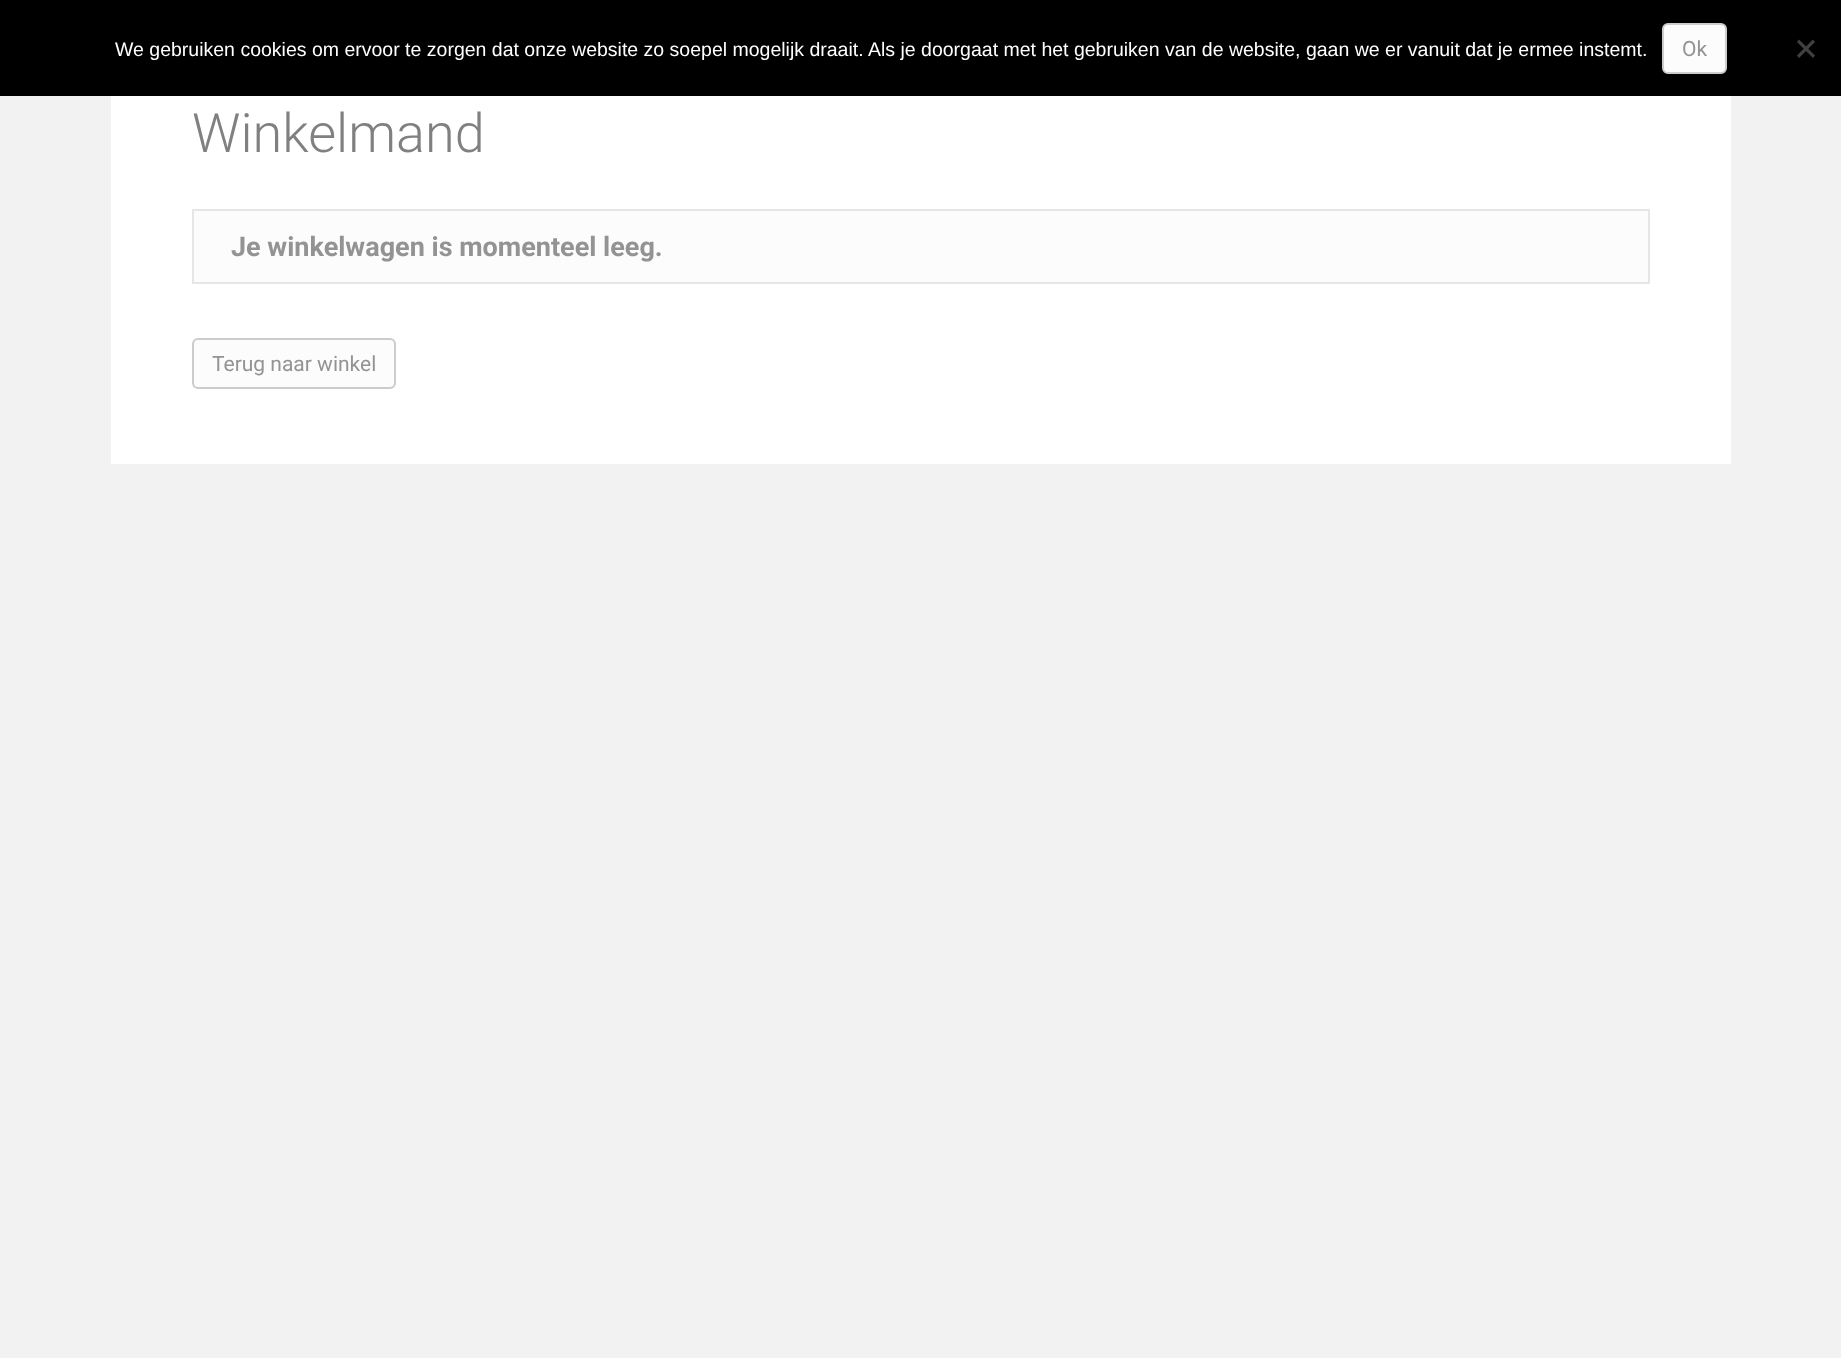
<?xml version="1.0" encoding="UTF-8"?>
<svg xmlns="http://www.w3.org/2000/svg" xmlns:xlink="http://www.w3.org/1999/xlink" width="1841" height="1358">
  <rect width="100%" height="100%" fill="#f2f2f2" />
  <rect width="1841" height="96" fill="#000000" />
  <rect x="1663" y="24" width="63" height="49" rx="5" fill="#fcfcfc" stroke="#cccccc" stroke-width="2" />
  <path d="M 1813 39.5 l 2 2.5 l -16 16 l -2 -2.5 z" fill="#404040" />
  <path d="M 1797 42 l 2 -2.5 l 16 16 l -2 2.5 z" fill="#404040" />
  <rect x="111" y="96" width="1620" height="368" fill="#ffffff" />
  <rect x="193" y="210" width="1456" height="73" fill="#fcfcfc" stroke="#e6e6e6" stroke-width="2" />
  <rect x="193" y="339" width="202" height="49" rx="5" fill="#fcfcfc" stroke="#cccccc" stroke-width="2" />
  <text x="115" y="56" style="font-family: Liberation Sans; font-size: 19.5px; fill: #ffffff">We gebruiken cookies om ervoor te zorgen dat onze website zo soepel mogelijk draait. Als je doorgaat met het gebruiken van de website, gaan we er vanuit dat je ermee instemt.</text>
  <text x="1682" y="56" style="font-family: Roboto; font-size: 21px; fill: #939393">Ok</text>
  <text x="192" y="152" style="font-family: Roboto; font-size: 54px; font-weight: 300; fill: #808080">Winkelmand</text>
  <text x="231" y="256" style="font-family: Roboto; font-size: 27px; font-weight: bold; fill: #939393">Je winkelwagen is momenteel leeg.</text>
  <text x="212" y="371" style="font-family: Roboto; font-size: 21px; fill: #939393">Terug naar winkel</text>
</svg>
